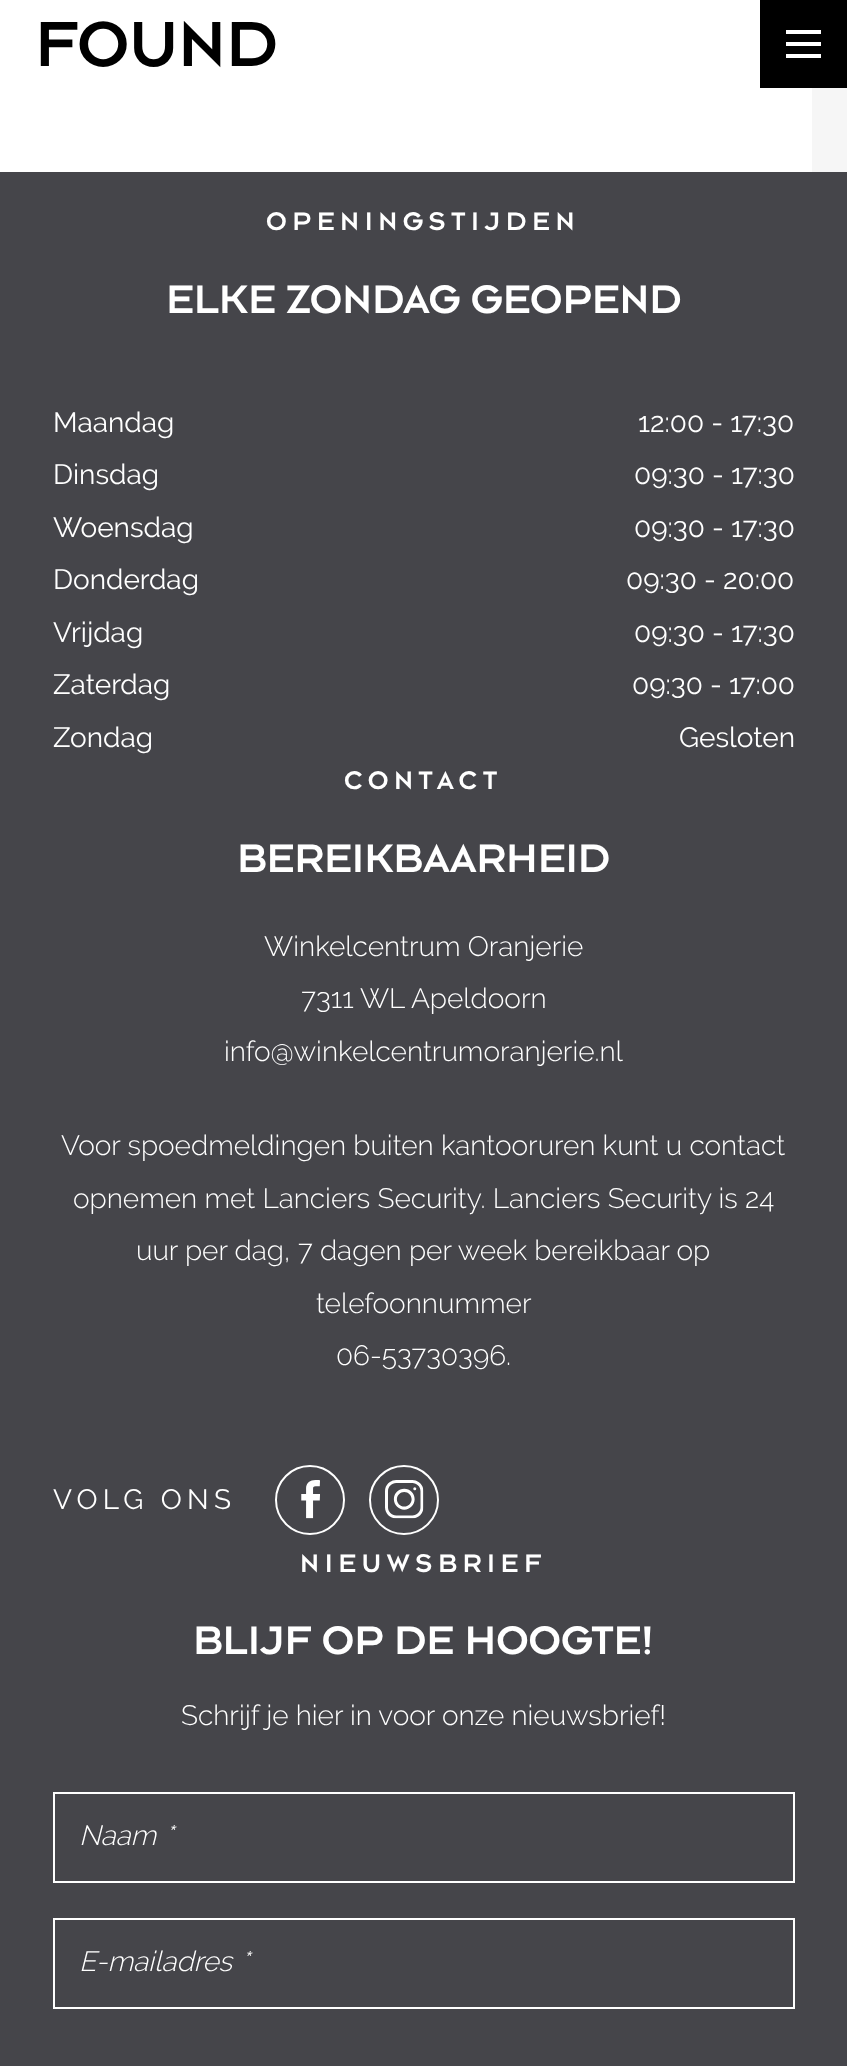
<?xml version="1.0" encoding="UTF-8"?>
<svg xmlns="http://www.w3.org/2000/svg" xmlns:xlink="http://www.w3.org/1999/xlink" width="847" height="2066">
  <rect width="100%" height="100%" fill="#f6f6f6" />
  <rect width="812" height="172" fill="#ffffff" />
  <rect x="760" width="87" height="88" fill="#000000" />
  <rect x="786" y="30" width="35" height="4" fill="#ffffff" />
  <rect x="786" y="42" width="35" height="4" fill="#ffffff" />
  <rect x="786" y="54" width="35" height="4" fill="#ffffff" />
  <rect y="172" width="847" height="1894" fill="#45454a" />
  <circle cx="310" cy="1500" r="34" fill="none" stroke="#ffffff" stroke-width="2" />
  <image x="301" y="1480" width="19" height="39" xlink:href="image1.png" />
  <circle cx="404" cy="1500" r="34" fill="none" stroke="#ffffff" stroke-width="2" />
  <image x="385" y="1480" width="39" height="39" xlink:href="image2.png" />
  <rect x="54" y="1793" width="740" height="89" fill="none" stroke="#ffffff" stroke-width="2" />
  <rect x="54" y="1919" width="740" height="89" fill="none" stroke="#ffffff" stroke-width="2" />
  <text x="35" y="66" style="font-family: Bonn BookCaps; font-size: 70px; fill: #000000">FOUND</text>
  <text x="266" y="230" style="font-family: Bonn BookCaps; font-size: 28px; letter-spacing: 5.6px; fill: #ffffff">OPENINGSTIJDEN</text>
  <text x="166" y="313" style="font-family: Bonn BookCaps; font-size: 43.75px; fill: #ffffff">ELKE ZONDAG GEOPEND</text>
  <text x="53" y="432" style="font-family: Raleway; font-size: 28px; fill: #ffffff">Maandag</text>
  <text x="638" y="432" style="font-family: Raleway; font-size: 28px; fill: #ffffff">12:00 - 17:30</text>
  <text x="53" y="484" style="font-family: Raleway; font-size: 28px; fill: #ffffff">Dinsdag</text>
  <text x="634" y="484" style="font-family: Raleway; font-size: 28px; fill: #ffffff">09:30 - 17:30</text>
  <text x="53" y="537" style="font-family: Raleway; font-size: 28px; fill: #ffffff">Woensdag</text>
  <text x="634" y="537" style="font-family: Raleway; font-size: 28px; fill: #ffffff">09:30 - 17:30</text>
  <text x="53" y="589" style="font-family: Raleway; font-size: 28px; fill: #ffffff">Donderdag</text>
  <text x="626" y="589" style="font-family: Raleway; font-size: 28px; fill: #ffffff">09:30 - 20:00</text>
  <text x="53" y="642" style="font-family: Raleway; font-size: 28px; fill: #ffffff">Vrijdag</text>
  <text x="634" y="642" style="font-family: Raleway; font-size: 28px; fill: #ffffff">09:30 - 17:30</text>
  <text x="53" y="694" style="font-family: Raleway; font-size: 28px; fill: #ffffff">Zaterdag</text>
  <text x="632" y="694" style="font-family: Raleway; font-size: 28px; fill: #ffffff">09:30 - 17:00</text>
  <text x="53" y="747" style="font-family: Raleway; font-size: 28px; fill: #ffffff">Zondag</text>
  <text x="679" y="747" style="font-family: Raleway; font-size: 28px; fill: #ffffff">Gesloten</text>
  <text x="344" y="789" style="font-family: Bonn BookCaps; font-size: 28px; letter-spacing: 5.6px; fill: #ffffff">CONTACT</text>
  <text x="237" y="872" style="font-family: Bonn BookCaps; font-size: 43.75px; fill: #ffffff">BEREIKBAARHEID</text>
  <text x="264" y="956" style="font-family: Raleway; font-size: 28px; font-weight: 300; fill: #ffffff">Winkelcentrum Oranjerie</text>
  <text x="301" y="1008" style="font-family: Raleway; font-size: 28px; font-weight: 300; fill: #ffffff">7311 WL Apeldoorn</text>
  <text x="224" y="1061" style="font-family: Raleway; font-size: 28px; font-weight: 300; fill: #ffffff">info@winkelcentrumoranjerie.nl</text>
  <text x="61" y="1155" style="font-family: Raleway; font-size: 28px; font-weight: 300; fill: #ffffff">Voor spoedmeldingen buiten kantooruren kunt u contact</text>
  <text x="73" y="1208" style="font-family: Raleway; font-size: 28px; font-weight: 300; fill: #ffffff">opnemen met Lanciers Security. Lanciers Security is 24</text>
  <text x="136" y="1260" style="font-family: Raleway; font-size: 28px; font-weight: 300; fill: #ffffff">uur per dag, 7 dagen per week bereikbaar op</text>
  <text x="316" y="1313" style="font-family: Raleway; font-size: 28px; font-weight: 300; fill: #ffffff">telefoonnummer</text>
  <text x="336" y="1365" style="font-family: Raleway; font-size: 28px; font-weight: 300; fill: #ffffff">06-53730396.</text>
  <text x="53" y="1509" style="font-family: Raleway; font-size: 28px; letter-spacing: 5.25px; fill: #ffffff">VOLG ONS</text>
  <text x="300" y="1572" style="font-family: Bonn BookCaps; font-size: 28px; letter-spacing: 5.6px; fill: #ffffff">NIEUWSBRIEF</text>
  <text x="193" y="1654" style="font-family: Bonn BookCaps; font-size: 43.75px; fill: #ffffff">BLIJF OP DE HOOGTE!</text>
  <text x="181" y="1725" style="font-family: Raleway; font-size: 28px; font-weight: 300; fill: #ffffff">Schrijf je hier in voor onze nieuwsbrief!</text>
  <text x="79" y="1845" style="font-family: Raleway; font-size: 28px; font-weight: 300; font-style: italic; fill: #ffffff">Naam</text>
  <text x="165" y="1845" style="font-family: Raleway; font-size: 28px; font-weight: 300; font-style: italic; fill: #ffffff">*</text>
  <text x="79" y="1971" style="font-family: Raleway; font-size: 28px; font-weight: 300; font-style: italic; fill: #ffffff">E-mailadres</text>
  <text x="241" y="1971" style="font-family: Raleway; font-size: 28px; font-weight: 300; font-style: italic; fill: #ffffff">*</text>
</svg>
